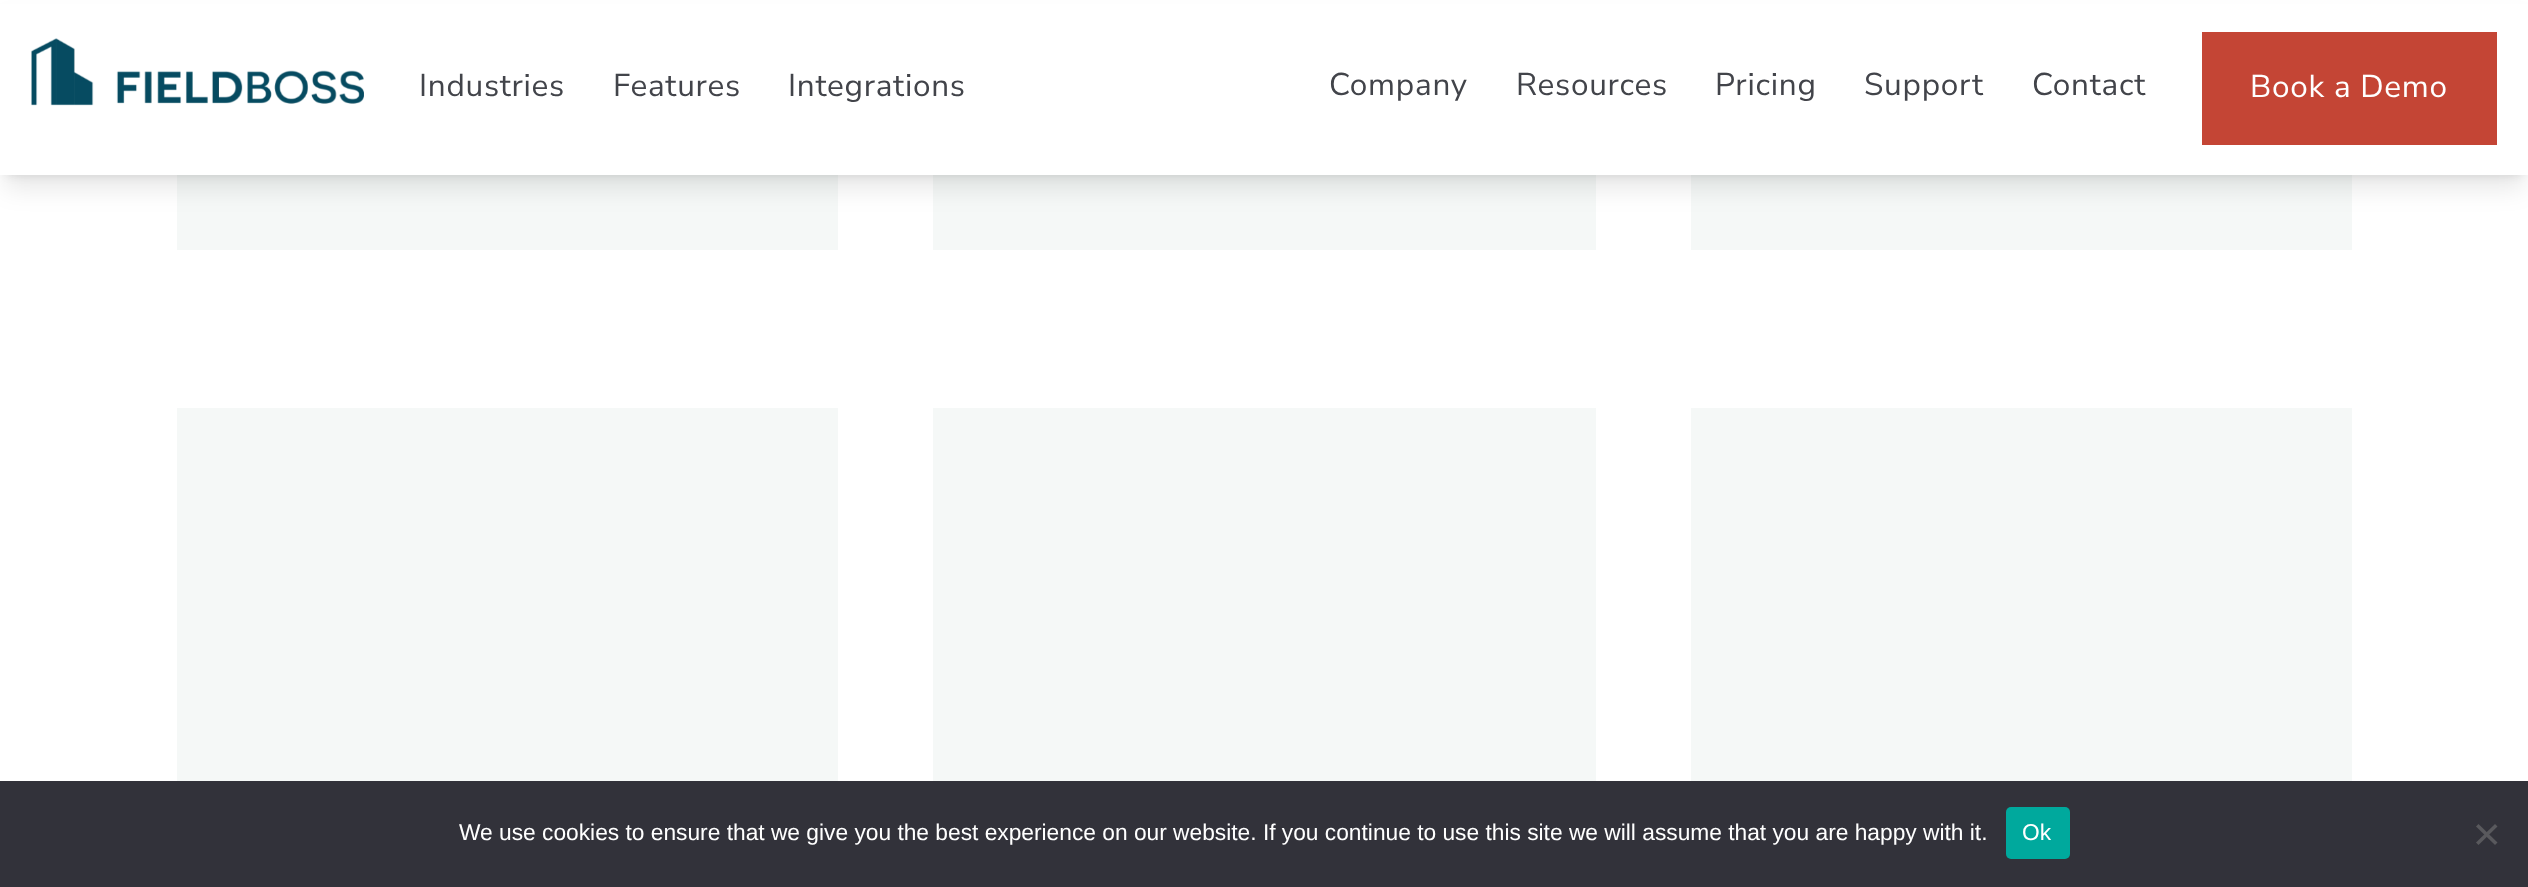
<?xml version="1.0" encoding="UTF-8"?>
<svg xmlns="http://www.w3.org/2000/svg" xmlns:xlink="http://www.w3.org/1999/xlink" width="2528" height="887">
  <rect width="100%" height="100%" fill="#ffffff" />
  <rect x="177" y="175" width="661" height="75" fill="#f5f8f7" />
  <rect x="933" y="175" width="663" height="75" fill="#f5f8f7" />
  <rect x="1691" y="175" width="661" height="75" fill="#f5f8f7" />
  <rect x="7" y="14" width="2515" height="161" fill="#000000" fill-opacity="0.1" filter="blur(5px)" />
  <rect x="5" y="23" width="2519" height="164" fill="#000000" fill-opacity="0.1" filter="blur(13px)" />
  <rect y="4" width="2528" height="171" fill="#ffffff" />
  <image x="31" y="38" width="333" height="68" xlink:href="image1.png" />
  <rect x="2202" y="32" width="295" height="113" fill="#c44535" />
  <rect x="177" y="408" width="661" height="373" fill="#f5f8f7" />
  <rect x="933" y="408" width="663" height="373" fill="#f5f8f7" />
  <rect x="1691" y="408" width="661" height="373" fill="#f5f8f7" />
  <rect y="781" width="2528" height="106" fill="#32323a" />
  <rect x="2006" y="807" width="64" height="52" rx="5" fill="#00a99d" />
  <path d="M 2495 824 l 2.5 2.5 l -19 18.5 l -2.5 -2.5 z" fill="#59595d" />
  <path d="M 2476 826.5 l 2.5 -2.5 l 19 18.5 l -2.5 2.5 z" fill="#59595d" />
  <text x="419" y="96" style="font-family: Nunito Sans; font-size: 31.5px; letter-spacing: 0.75px; fill: #42444a">Industries</text>
  <text x="613" y="96" style="font-family: Nunito Sans; font-size: 31.5px; letter-spacing: 0.75px; fill: #42444a">Features</text>
  <text x="788" y="96" style="font-family: Nunito Sans; font-size: 31.5px; letter-spacing: 0.75px; fill: #42444a">Integrations</text>
  <text x="1329" y="95" style="font-family: Nunito Sans; font-size: 31.5px; letter-spacing: 0.75px; fill: #42444a">Company</text>
  <text x="1516" y="95" style="font-family: Nunito Sans; font-size: 31.5px; letter-spacing: 0.75px; fill: #42444a">Resources</text>
  <text x="1715" y="95" style="font-family: Nunito Sans; font-size: 31.5px; letter-spacing: 0.75px; fill: #42444a">Pricing</text>
  <text x="1864" y="95" style="font-family: Nunito Sans; font-size: 31.5px; letter-spacing: 0.75px; fill: #42444a">Support</text>
  <text x="2032" y="95" style="font-family: Nunito Sans; font-size: 31.5px; letter-spacing: 0.75px; fill: #42444a">Contact</text>
  <text x="2250" y="97" style="font-family: Nunito Sans; font-size: 31.5px; letter-spacing: 0.75px; fill: #ffffff">Book a Demo</text>
  <text x="459" y="840" style="font-family: Liberation Sans; font-size: 22.75px; fill: #ffffff">We use cookies to ensure that we give you the best experience on our website. If you continue to use this site we will assume that you are happy with it.</text>
  <text x="2022" y="840" style="font-family: Liberation Sans; font-size: 22.75px; fill: #ffffff">Ok</text>
</svg>
